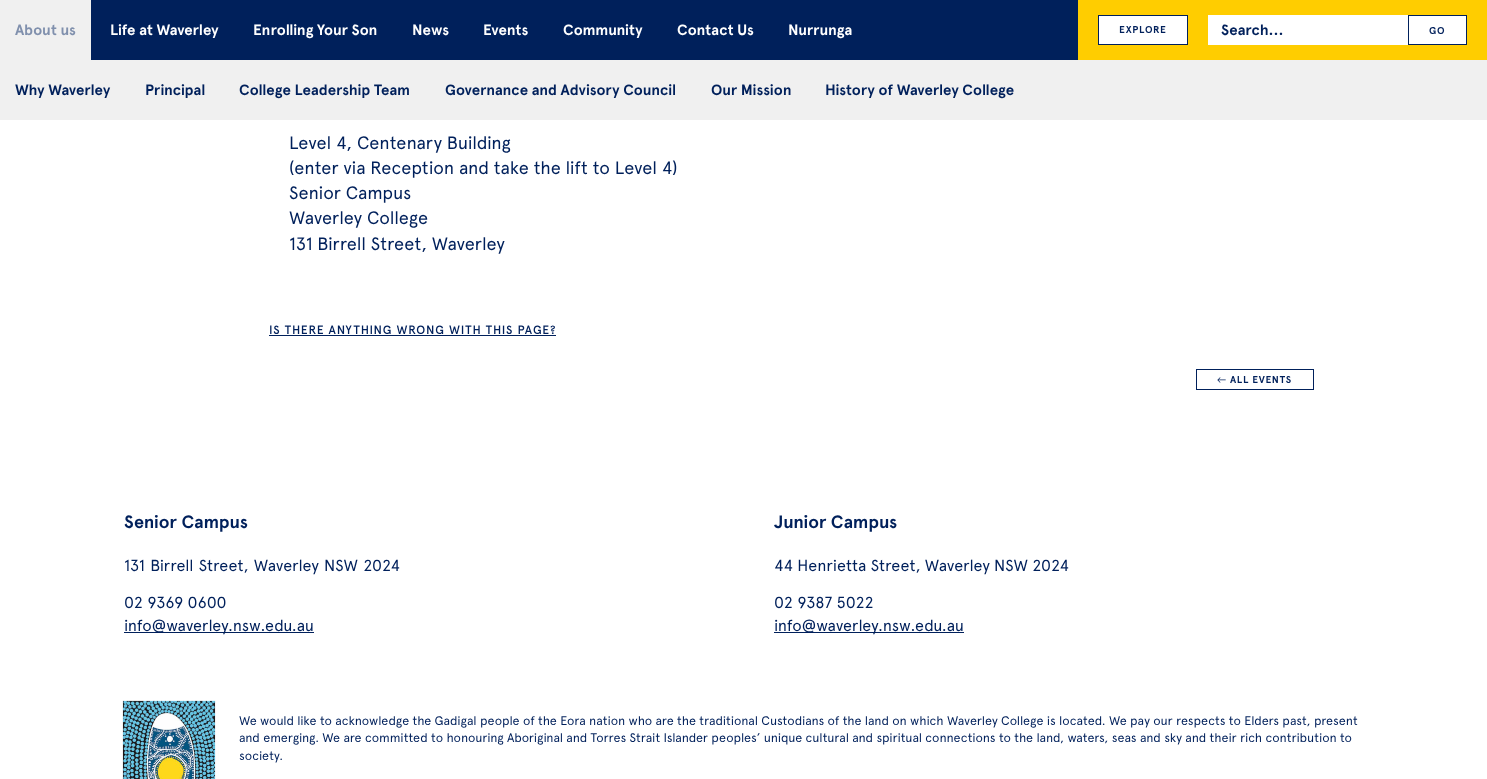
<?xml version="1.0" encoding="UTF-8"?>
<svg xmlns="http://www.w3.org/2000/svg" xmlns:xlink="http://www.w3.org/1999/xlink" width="1487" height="779">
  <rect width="100%" height="100%" fill="#ffffff" />
  <rect x="91" width="987" height="60" fill="#00205b" />
  <rect width="91" height="60" fill="#f0f0f0" />
  <rect y="60" width="1487" height="60" fill="#f0f0f0" />
  <rect x="1078" width="409" height="60" fill="#ffcd00" />
  <rect x="1098.5" y="15.5" width="89" height="29" fill="#ffffff" stroke="#00205b" />
  <rect x="1208" y="15" width="200" height="30" fill="#ffffff" />
  <rect x="1408.5" y="15.5" width="58" height="29" fill="#ffffff" stroke="#00205b" />
  <rect x="269" y="335" width="287" height="1" fill="#00205b" />
  <rect x="1196.5" y="369.5" width="117" height="20" fill="none" stroke="#00205b" />
  <rect x="124" y="632" width="190" height="1" fill="#00205b" />
  <rect x="774" y="632" width="190" height="1" fill="#00205b" />
  <image x="122" y="700" width="97" height="79" xlink:href="image1.png" />
  <text x="15" y="35" style="font-family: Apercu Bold; font-size: 15px; font-weight: bold; fill: #8090ad">About us</text>
  <text x="15" y="95" style="font-family: Apercu Bold; font-size: 15px; font-weight: bold; fill: #00205b">Why Waverley</text>
  <text x="145" y="95" style="font-family: Apercu Bold; font-size: 15px; font-weight: bold; fill: #00205b">Principal</text>
  <text x="239" y="95" style="font-family: Apercu Bold; font-size: 15px; font-weight: bold; fill: #00205b">College Leadership Team</text>
  <text x="445" y="95" style="font-family: Apercu Bold; font-size: 15px; font-weight: bold; fill: #00205b">Governance and Advisory Council</text>
  <text x="711" y="95" style="font-family: Apercu Bold; font-size: 15px; font-weight: bold; fill: #00205b">Our Mission</text>
  <text x="825" y="95" style="font-family: Apercu Bold; font-size: 15px; font-weight: bold; fill: #00205b">History of Waverley College</text>
  <text x="110" y="35" style="font-family: Apercu Bold; font-size: 15px; font-weight: bold; fill: #ffffff">Life at Waverley</text>
  <text x="253" y="35" style="font-family: Apercu Bold; font-size: 15px; font-weight: bold; fill: #ffffff">Enrolling Your Son</text>
  <text x="412" y="35" style="font-family: Apercu Bold; font-size: 15px; font-weight: bold; fill: #ffffff">News</text>
  <text x="483" y="35" style="font-family: Apercu Bold; font-size: 15px; font-weight: bold; fill: #ffffff">Events</text>
  <text x="563" y="35" style="font-family: Apercu Bold; font-size: 15px; font-weight: bold; fill: #ffffff">Community</text>
  <text x="677" y="35" style="font-family: Apercu Bold; font-size: 15px; font-weight: bold; fill: #ffffff">Contact Us</text>
  <text x="788" y="35" style="font-family: Apercu Bold; font-size: 15px; font-weight: bold; fill: #ffffff">Nurrunga</text>
  <text x="1119" y="33" style="font-family: Apercu Bold; font-size: 10px; font-weight: bold; letter-spacing: 0.75px; fill: #00205b">EXPLORE</text>
  <text x="1221" y="35" style="font-family: Apercu Bold; font-size: 15px; font-weight: bold; fill: #00205b">Search...</text>
  <text x="1429" y="34" style="font-family: Apercu Bold; font-size: 10px; font-weight: bold; letter-spacing: 0.75px; fill: #00205b">GO</text>
  <text x="289" y="149" style="font-family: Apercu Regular; font-size: 18px; fill: #00205b">Level 4, Centenary Building</text>
  <text x="289" y="174" style="font-family: Apercu Regular; font-size: 18px; fill: #00205b">(enter via Reception and take the lift to Level 4)</text>
  <text x="289" y="199" style="font-family: Apercu Regular; font-size: 18px; fill: #00205b">Senior Campus</text>
  <text x="289" y="224" style="font-family: Apercu Regular; font-size: 18px; fill: #00205b">Waverley College</text>
  <text x="289" y="250" style="font-family: Apercu Regular; font-size: 18px; fill: #00205b">131 Birrell Street, Waverley</text>
  <text x="269" y="334" style="font-family: Apercu Regular; font-size: 12px; font-weight: 500; letter-spacing: 1px; fill: #00205b">IS THERE ANYTHING WRONG WITH THIS PAGE?</text>
  <text x="1217" y="383" style="font-family: Carlito; font-size: 10px; letter-spacing: 0.75px; fill: #00205b">←</text>
  <text x="1230" y="383" style="font-family: Apercu Bold; font-size: 10px; font-weight: bold; letter-spacing: 0.75px; fill: #00205b">ALL EVENTS</text>
  <text x="124" y="528" style="font-family: Apercu Bold; font-size: 18px; font-weight: bold; fill: #00205b">Senior Campus</text>
  <text x="124" y="571" word-spacing="1" style="font-family: Apercu Regular; font-size: 16px; fill: #00205b">131 Birrell Street, Waverley NSW 2024</text>
  <text x="124" y="608" style="font-family: Apercu Regular; font-size: 16px; fill: #00205b">02 9369 0600</text>
  <text x="124" y="631" style="font-family: Apercu Regular; font-size: 16px; fill: #00205b">info@waverley.nsw.edu.au</text>
  <text x="774" y="528" style="font-family: Apercu Bold; font-size: 18px; font-weight: bold; fill: #00205b">Junior Campus</text>
  <text x="774" y="571" style="font-family: Apercu Regular; font-size: 16px; fill: #00205b">44 Henrietta Street, Waverley NSW 2024</text>
  <text x="774" y="608" style="font-family: Apercu Regular; font-size: 16px; fill: #00205b">02 9387 5022</text>
  <text x="774" y="631" style="font-family: Apercu Regular; font-size: 16px; fill: #00205b">info@waverley.nsw.edu.au</text>
  <text x="239" y="725" style="font-family: Apercu Regular; font-size: 12.5px; fill: #00205b">We would like to acknowledge the Gadigal people of the Eora nation who are the traditional Custodians of the land on which Waverley College is located. We pay our respects to Elders past, present</text>
  <text x="239" y="742" style="font-family: Apercu Regular; font-size: 12.5px; fill: #00205b">and emerging. We are committed to honouring Aboriginal and Torres Strait Islander peoples’ unique cultural and spiritual connections to the land, waters, seas and sky and their rich contribution to</text>
  <text x="239" y="760" style="font-family: Apercu Regular; font-size: 12.5px; fill: #00205b">society.</text>
</svg>
